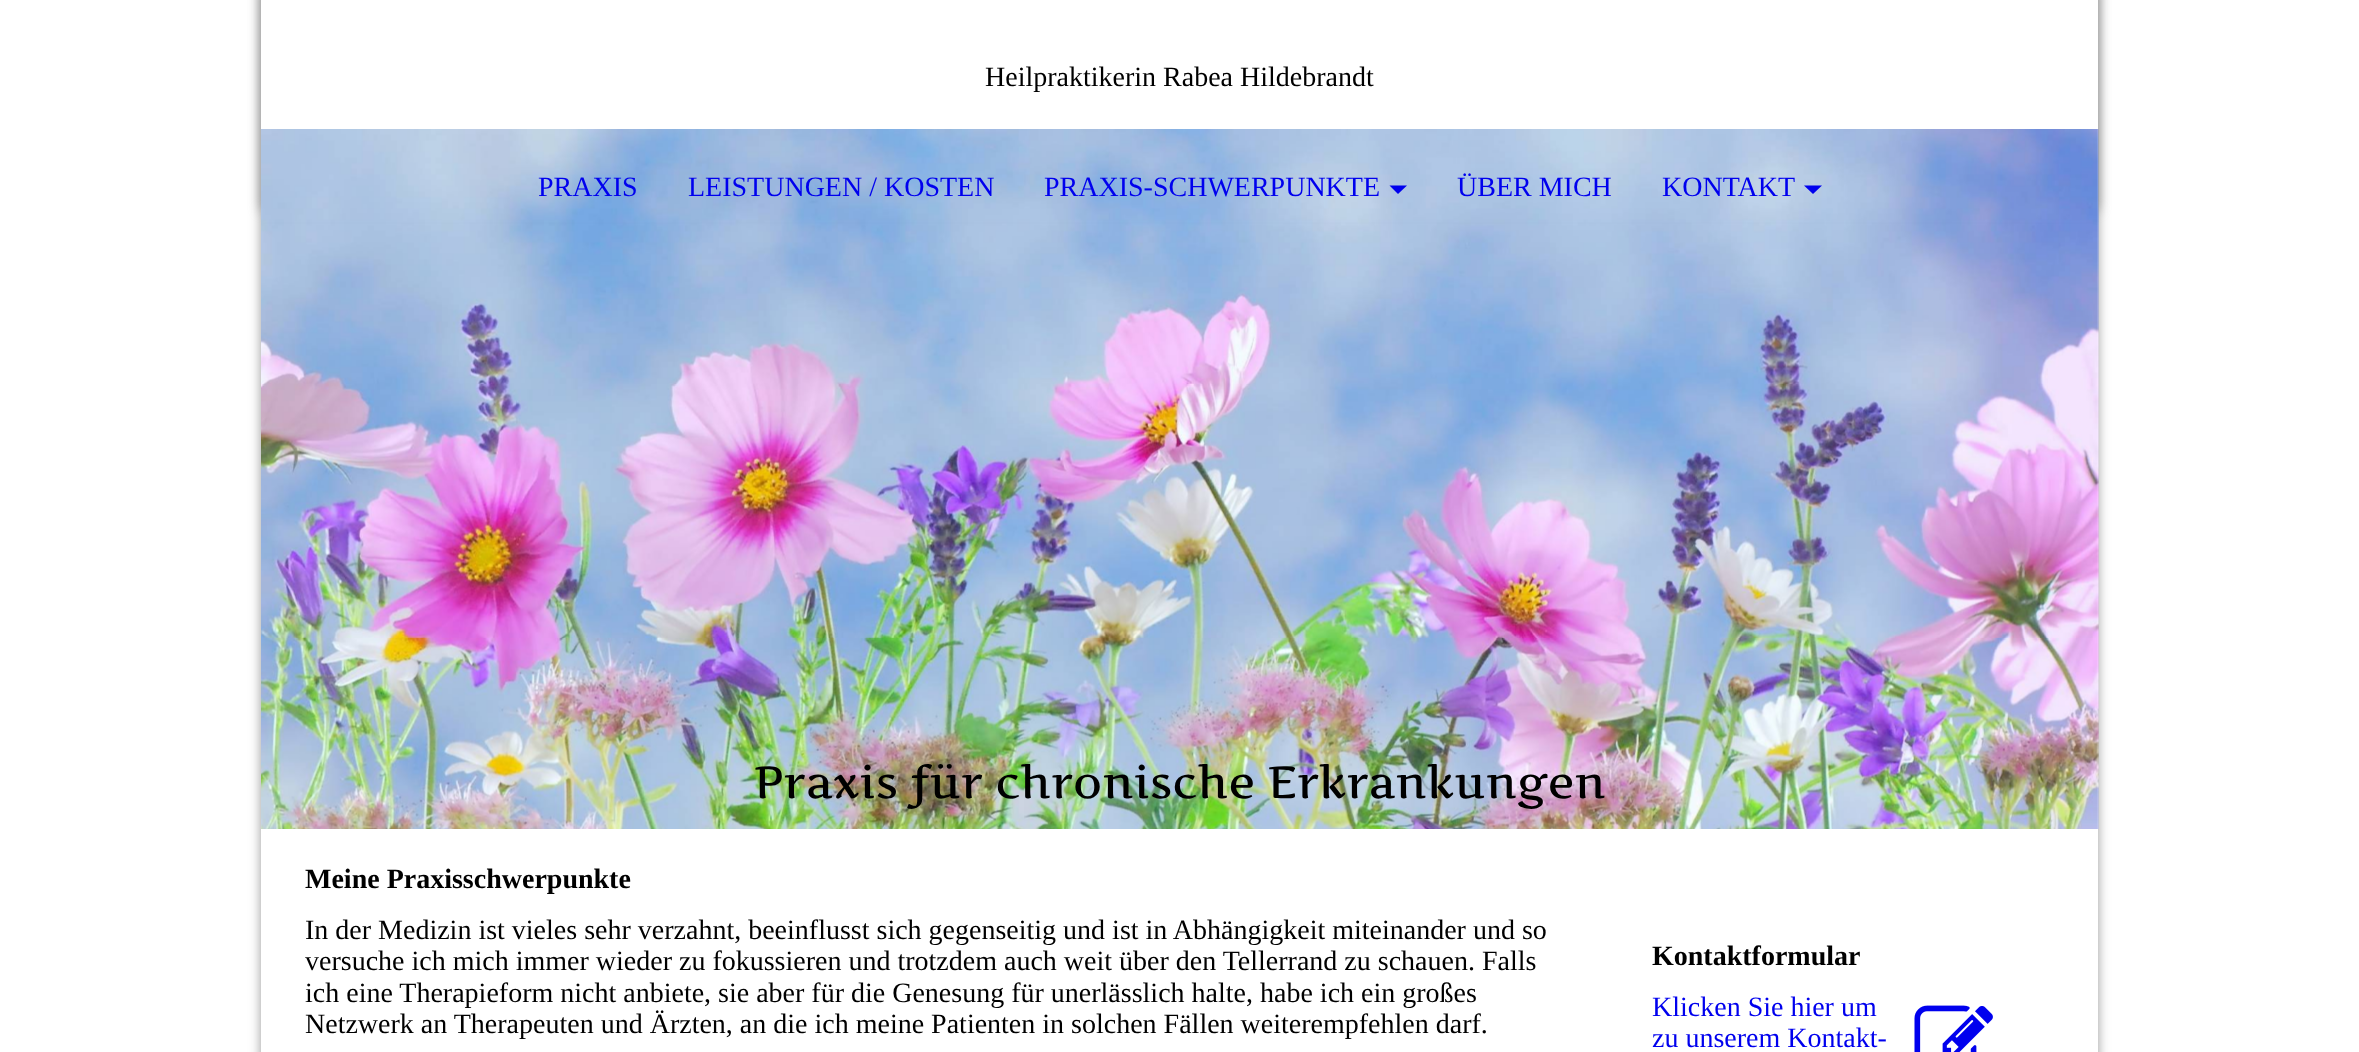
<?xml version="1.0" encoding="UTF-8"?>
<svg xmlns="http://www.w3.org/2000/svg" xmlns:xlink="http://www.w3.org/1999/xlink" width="2359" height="1052">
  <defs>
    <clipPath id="clip1"><path d="M 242 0 h 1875 v 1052 h -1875 z m 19 -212 h 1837 v 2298 h -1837 z" clip-rule="evenodd" /></clipPath>
    <clipPath id="clip2"><path d="M 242 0 h 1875 v 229 h -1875 z m 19 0 h 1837 v 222 h -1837 z" clip-rule="evenodd" /></clipPath>
  </defs>
  <rect width="100%" height="100%" fill="#ffffff" />
  <g clip-path="url(#clip1)">
    <rect x="261" y="-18" width="1837" height="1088" fill="#999999" filter="blur(6px)" />
  </g>
  <image x="261" y="129" width="1838" height="700" xlink:href="image1.png" />
  <g clip-path="url(#clip2)">
    <rect x="261" y="-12" width="1837" height="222" fill="#999999" filter="blur(6px)" />
  </g>
  <path d="M 1389.5 185.5 h 17.5 l -9 8.5 z" fill="#0000ee" />
  <path d="M 1804 185.5 h 18 l -9 8.5 z" fill="#0000ee" />
  <image x="1914" y="1005" width="79" height="47" xlink:href="image2.png" />
  <text x="985" y="86" style="font-family: Liberation Serif; font-size: 28px; fill: #000000">Heilpraktikerin Rabea Hildebrandt</text>
  <text x="538" y="196" style="font-family: Liberation Serif; font-size: 28px; fill: #0000ee">PRAXIS</text>
  <text x="688" y="196" style="font-family: Liberation Serif; font-size: 28px; fill: #0000ee">LEISTUNGEN / KOSTEN</text>
  <text x="1044" y="196" style="font-family: Liberation Serif; font-size: 28px; fill: #0000ee">PRAXIS-SCHWERPUNKTE</text>
  <text x="1457" y="196" style="font-family: Liberation Serif; font-size: 28px; fill: #0000ee">ÜBER MICH</text>
  <text x="1662" y="196" style="font-family: Liberation Serif; font-size: 28px; fill: #0000ee">KONTAKT</text>
  <text x="754" y="798" style="font-family: Artifika; font-size: 45.5px; fill: #000000">Praxis für chronische Erkrankungen</text>
  <text x="305" y="888" style="font-family: Liberation Serif; font-size: 28px; font-weight: bold; fill: #000000">Meine Praxisschwerpunkte</text>
  <text x="305" y="939" style="font-family: Liberation Serif; font-size: 28px; fill: #000000">In der Medizin ist vieles sehr verzahnt, beeinflusst sich gegenseitig und ist in Abhängigkeit miteinander und so</text>
  <text x="305" y="970" style="font-family: Liberation Serif; font-size: 28px; fill: #000000">versuche ich mich immer wieder zu fokussieren und trotzdem auch weit über den Tellerrand zu schauen. Falls</text>
  <text x="305" y="1002" style="font-family: Liberation Serif; font-size: 28px; fill: #000000">ich eine Therapieform nicht anbiete, sie aber für die Genesung für unerlässlich halte, habe ich ein großes</text>
  <text x="305" y="1033" style="font-family: Liberation Serif; font-size: 28px; fill: #000000">Netzwerk an Therapeuten und Ärzten, an die ich meine Patienten in solchen Fällen weiterempfehlen darf.</text>
  <text x="1652" y="965" style="font-family: Liberation Serif; font-size: 28px; font-weight: bold; fill: #000000">Kontaktformular</text>
  <text x="1652" y="1016" style="font-family: Liberation Serif; font-size: 28px; fill: #0000ee">Klicken Sie hier um</text>
  <text x="1652" y="1047" style="font-family: Liberation Serif; font-size: 28px; fill: #0000ee">zu unserem Kontakt-</text>
</svg>
